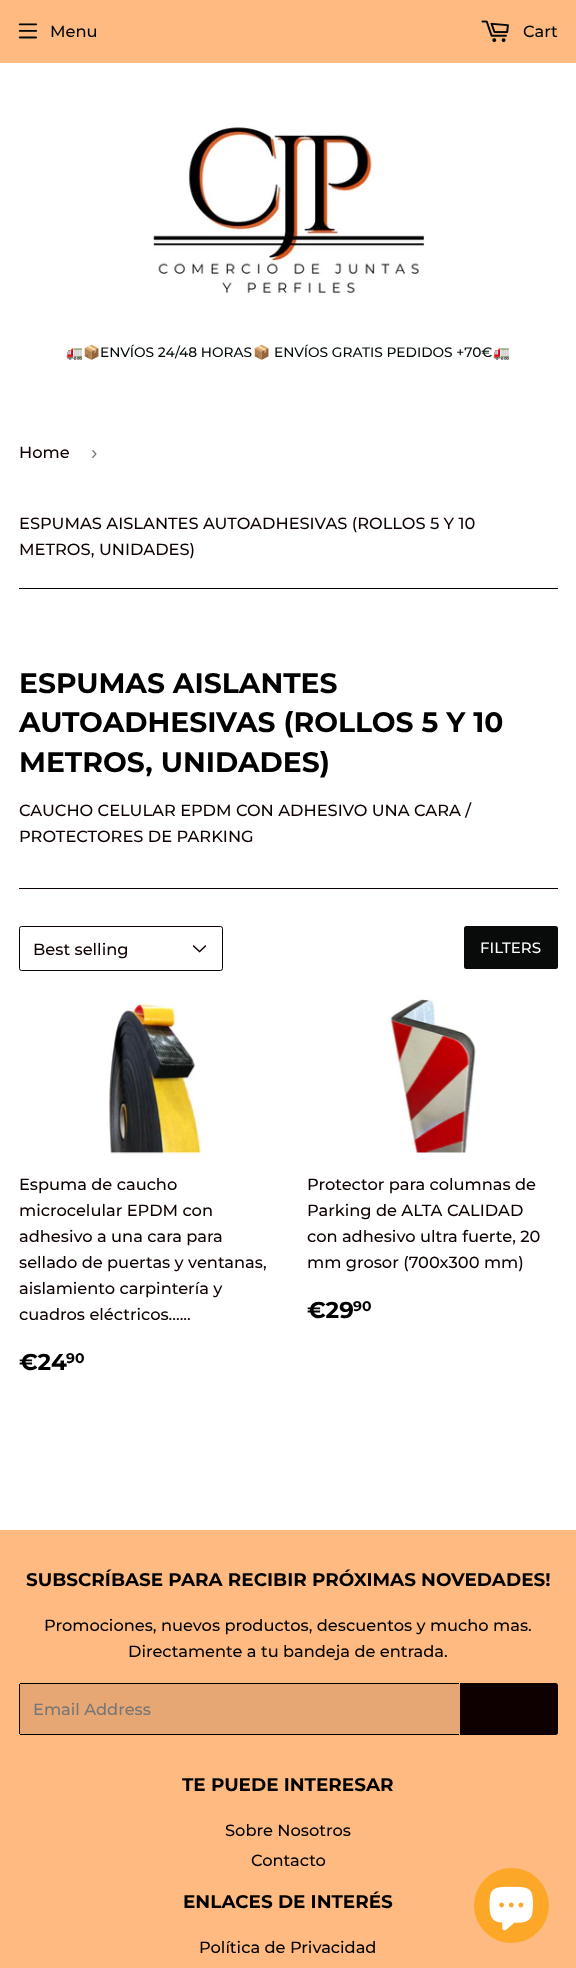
<?xml version="1.0" encoding="UTF-8"?>
<svg xmlns="http://www.w3.org/2000/svg" xmlns:xlink="http://www.w3.org/1999/xlink" width="576" height="1968">
  <rect width="100%" height="100%" fill="#ffffff" />
  <rect width="576" height="63" fill="#ffba81" />
  <image x="18" y="23" width="20" height="16" xlink:href="image1.png" />
  <image x="481" y="20" width="28" height="23" xlink:href="image2.png" />
  <image x="153" y="126" width="272" height="170" xlink:href="image3.png" />
  <rect x="19" y="588" width="539" height="1" fill="#0a0101" />
  <rect x="19" y="888" width="539" height="1" fill="#0a0101" />
  <image x="192" y="945" width="15" height="8" xlink:href="image4.png" />
  <rect x="19.5" y="926.5" width="203" height="44" rx="2" fill="none" stroke="#0a0101" />
  <rect x="464" y="926" width="94" height="43" rx="2.5" fill="#090a0a" />
  <image x="109" y="1003" width="93" height="151" xlink:href="image5.png" />
  <image x="390" y="996" width="87" height="157" xlink:href="image6.png" />
  <rect y="1530" width="576" height="438" fill="#ffba81" />
  <rect x="19" y="1683" width="441" height="52" rx="2.5" fill="#e7a774" />
  <rect x="20" y="1683" width="439" height="1" fill="#000000" />
  <rect x="20" y="1734" width="439" height="1" fill="#000000" />
  <rect x="19" y="1684" width="1" height="50" fill="#000000" />
  <path d="M 460 1683 h 95.5 c 1.5 0 2.5 1 2.5 2.5 v 47 c 0 1.5 -1 2.5 -2.5 2.5 h -95.5 z" fill="#0e0000" />
  <circle cx="511.5" cy="1905.5" r="37.5" fill="#fda729" />
  <image x="489" y="1886" width="44" height="45" xlink:href="image7.png" />
  <text x="50" y="37" style="font-family: Montserrat; font-size: 16.25px; font-weight: 500; fill: #01080a">Menu</text>
  <text x="523" y="37" style="font-family: Montserrat; font-size: 16.25px; font-weight: 500; fill: #01080a">Cart</text>
  <text x="66" y="357" style="font-family: Noto Color Emoji; font-size: 13.75px; fill: #01080a">🚛📦</text>
  <text x="100" y="357" style="font-family: Montserrat; font-size: 13.75px; font-weight: 500; fill: #01080a">ENVÍOS 24/48 HORAS</text>
  <text x="253" y="357" style="font-family: Noto Color Emoji; font-size: 13.75px; fill: #01080a">📦</text>
  <text x="274" y="357" style="font-family: Montserrat; font-size: 13.75px; font-weight: 500; fill: #01080a">ENVÍOS GRATIS PEDIDOS +70€</text>
  <text x="493" y="357" style="font-family: Noto Color Emoji; font-size: 13.75px; fill: #01080a">🚛</text>
  <text x="19" y="458" style="font-family: Montserrat; font-size: 16.25px; font-weight: 500; fill: #0e0000">Home</text>
  <text x="91" y="459" style="font-family: Liberation Sans; font-size: 19px; fill: #767676">›</text>
  <text x="19" y="529" style="font-family: Montserrat; font-size: 16.25px; font-weight: 500; fill: #0e0000">ESPUMAS AISLANTES AUTOADHESIVAS (ROLLOS 5 Y 10</text>
  <text x="19" y="555" style="font-family: Montserrat; font-size: 16.25px; font-weight: 500; fill: #0e0000">METROS, UNIDADES)</text>
  <text x="19" y="693" style="font-family: Montserrat; font-size: 28.2px; font-weight: bold; fill: #000000">ESPUMAS AISLANTES</text>
  <text x="19" y="732" style="font-family: Montserrat; font-size: 28.2px; font-weight: bold; fill: #000000">AUTOADHESIVAS (ROLLOS 5 Y 10</text>
  <text x="19" y="772" style="font-family: Montserrat; font-size: 28.2px; font-weight: bold; fill: #000000">METROS, UNIDADES)</text>
  <text x="19" y="816" style="font-family: Montserrat; font-size: 16.25px; font-weight: 500; fill: #0e0000">CAUCHO CELULAR EPDM CON ADHESIVO UNA CARA /</text>
  <text x="19" y="842" style="font-family: Montserrat; font-size: 16.25px; font-weight: 500; fill: #0e0000">PROTECTORES DE PARKING</text>
  <text x="33" y="955" style="font-family: Montserrat; font-size: 16.25px; font-weight: 500; fill: #0e0000">Best selling</text>
  <text x="480" y="953" style="font-family: Montserrat; font-size: 15px; font-weight: 500; fill: #ffffff">FILTERS</text>
  <text x="19" y="1190" style="font-family: Montserrat; font-size: 16.25px; font-weight: 500; fill: #0e0000">Espuma de caucho</text>
  <text x="19" y="1216" style="font-family: Montserrat; font-size: 16.25px; font-weight: 500; fill: #0e0000">microcelular EPDM con</text>
  <text x="19" y="1242" style="font-family: Montserrat; font-size: 16.25px; font-weight: 500; fill: #0e0000">adhesivo a una cara para</text>
  <text x="19" y="1268" style="font-family: Montserrat; font-size: 16.25px; font-weight: 500; fill: #0e0000">sellado de puertas y ventanas,</text>
  <text x="19" y="1294" style="font-family: Montserrat; font-size: 16.25px; font-weight: 500; fill: #0e0000">aislamiento carpintería y</text>
  <text x="19" y="1320" style="font-family: Montserrat; font-size: 16.25px; font-weight: 500; fill: #0e0000">cuadros eléctricos......</text>
  <text x="19" y="1370" style="font-family: Montserrat; font-size: 23px; font-weight: bold; fill: #000000">€24</text>
  <text x="66" y="1363" style="font-family: Montserrat; font-size: 14px; font-weight: bold; fill: #000000">90</text>
  <text x="307" y="1190" style="font-family: Montserrat; font-size: 16.25px; font-weight: 500; fill: #0e0000">Protector para columnas de</text>
  <text x="307" y="1216" style="font-family: Montserrat; font-size: 16.25px; font-weight: 500; fill: #0e0000">Parking de ALTA CALIDAD</text>
  <text x="307" y="1242" style="font-family: Montserrat; font-size: 16.25px; font-weight: 500; fill: #0e0000">con adhesivo ultra fuerte, 20</text>
  <text x="307" y="1268" style="font-family: Montserrat; font-size: 16.25px; font-weight: 500; fill: #0e0000">mm grosor (700x300 mm)</text>
  <text x="307" y="1318" style="font-family: Montserrat; font-size: 23px; font-weight: bold; fill: #000000">€29</text>
  <text x="353" y="1311" style="font-family: Montserrat; font-size: 14px; font-weight: bold; fill: #000000">90</text>
  <text x="26" y="1586" style="font-family: Montserrat; font-size: 18.4px; font-weight: bold; fill: #000000">SUBSCRÍBASE PARA RECIBIR PRÓXIMAS NOVEDADES!</text>
  <text x="44" y="1631" style="font-family: Montserrat; font-size: 16.25px; font-weight: 500; fill: #000000">Promociones, nuevos productos, descuentos y mucho mas.</text>
  <text x="128" y="1657" style="font-family: Montserrat; font-size: 16.25px; font-weight: 500; fill: #000000">Directamente a tu bandeja de entrada.</text>
  <text x="33" y="1715" style="font-family: Montserrat; font-size: 16.25px; font-weight: 500; fill: #767676">Email Address</text>
  <text x="182" y="1791" style="font-family: Montserrat; font-size: 18.4px; font-weight: bold; fill: #000000">TE PUEDE INTERESAR</text>
  <text x="225" y="1836" style="font-family: Montserrat; font-size: 16.25px; font-weight: 500; fill: #000000">Sobre Nosotros</text>
  <text x="251" y="1866" style="font-family: Montserrat; font-size: 16.25px; font-weight: 500; fill: #000000">Contacto</text>
  <text x="183" y="1908" style="font-family: Montserrat; font-size: 18.4px; font-weight: bold; fill: #000000">ENLACES DE INTERÉS</text>
  <text x="199" y="1953" style="font-family: Montserrat; font-size: 16.25px; font-weight: 500; fill: #000000">Política de Privacidad</text>
</svg>
